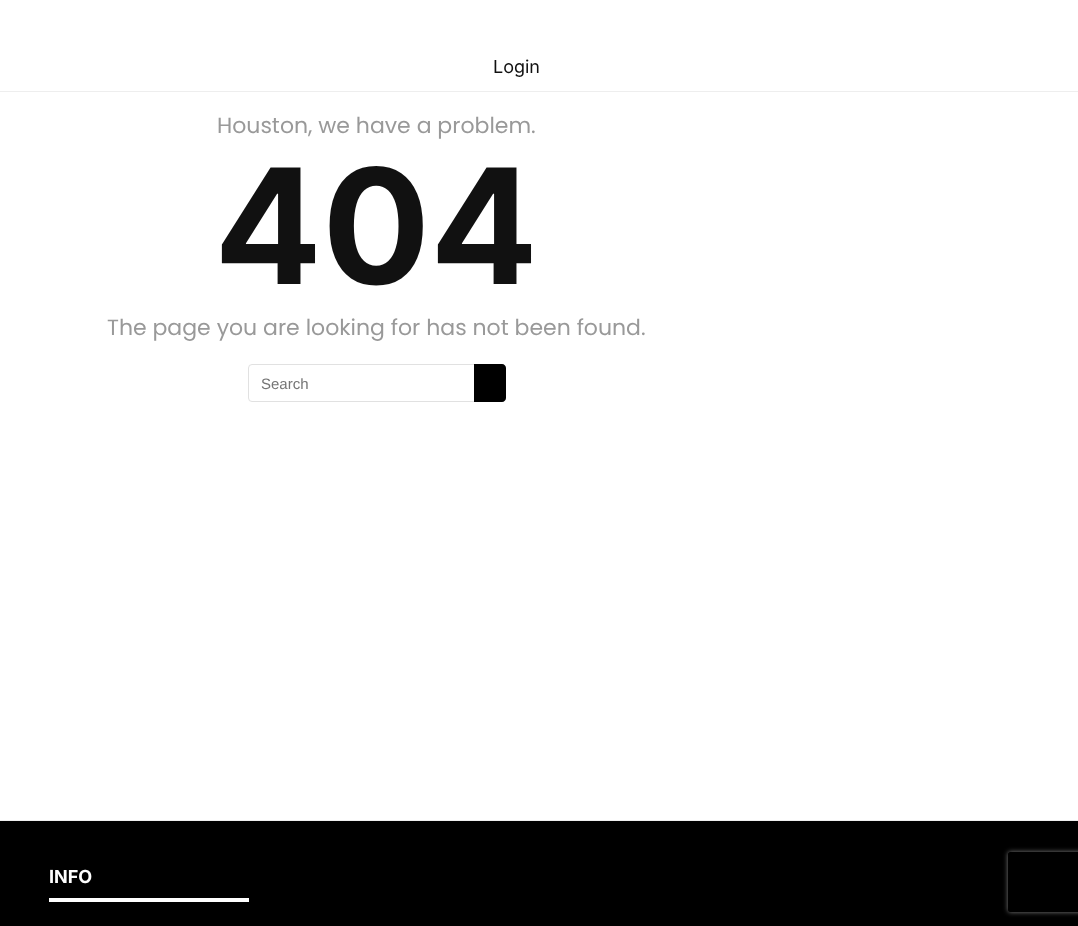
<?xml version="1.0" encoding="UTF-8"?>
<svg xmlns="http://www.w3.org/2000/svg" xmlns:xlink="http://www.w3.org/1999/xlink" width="1078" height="926">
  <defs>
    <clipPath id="clip1"><path d="M 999 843 h 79 v 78 h -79 z m 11 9 h 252 c 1 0 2 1 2 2 v 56 c 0 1 -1 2 -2 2 h -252 c -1 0 -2 -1 -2 -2 v -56 c 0 -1 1 -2 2 -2 z" clip-rule="evenodd" /></clipPath>
  </defs>
  <rect width="100%" height="100%" fill="#ffffff" />
  <rect y="91" width="1078" height="1" fill="#eeeeee" />
  <rect x="248.5" y="364.5" width="257" height="37" rx="3.5" fill="none" stroke="#e1e1e1" />
  <path d="M 474 364 h 28 c 2 0 4 2 4 4 v 30 c 0 2 -2 4 -4 4 h -28 z" fill="#000000" />
  <rect y="821" width="1078" height="105" fill="#000000" />
  <rect y="820" width="1078" height="1" fill="#eeeeee" />
  <rect x="49" y="898" width="200" height="4" fill="#ffffff" />
  <g clip-path="url(#clip1)">
    <rect x="1008" y="852" width="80" height="60" rx="2" fill="#808080" filter="blur(2.5px)" />
  </g>
  <text x="493" y="73" style="font-family: Inter; font-size: 18px; fill: #111111">Login</text>
  <text x="217" y="133" style="font-family: Poppins; font-size: 22px; fill: #999999">Houston, we have a problem.</text>
  <text x="214" y="284" style="font-family: Inter; font-size: 160px; font-weight: bold; fill: #111111">404</text>
  <text x="107" y="335" style="font-family: Poppins; font-size: 22px; fill: #999999">The page you are looking for has not been found.</text>
  <text x="261" y="389" style="font-family: Liberation Sans; font-size: 15px; fill: #757575">Search</text>
  <text x="49" y="883" style="font-family: Inter; font-size: 18px; font-weight: bold; fill: #ffffff">INFO</text>
</svg>
